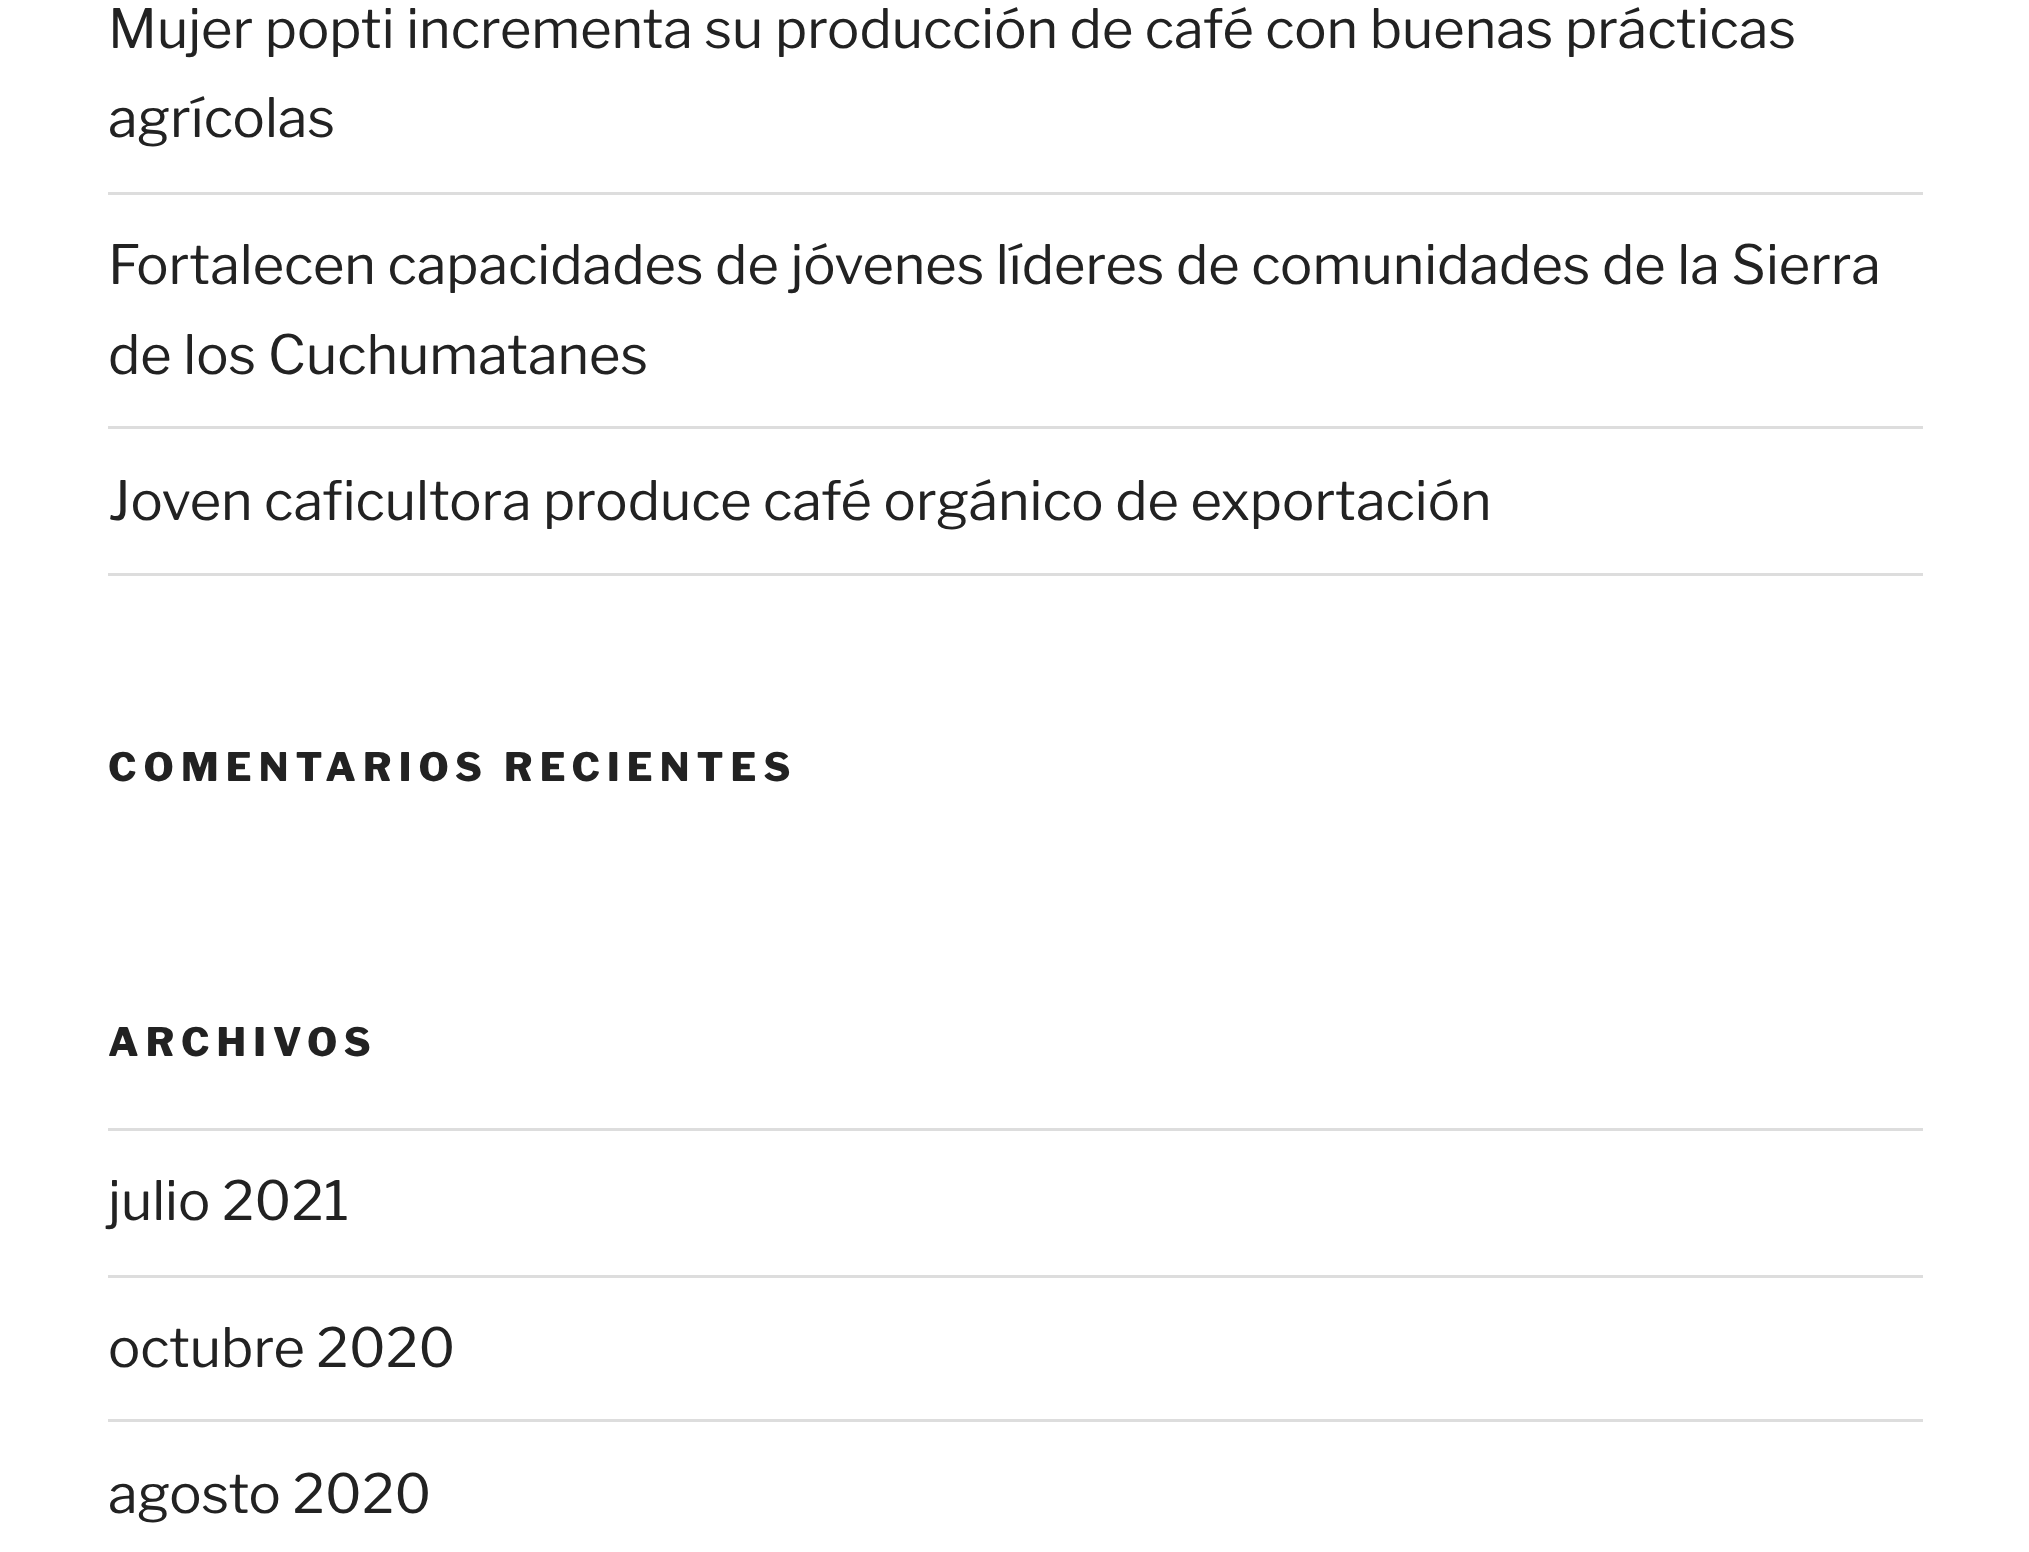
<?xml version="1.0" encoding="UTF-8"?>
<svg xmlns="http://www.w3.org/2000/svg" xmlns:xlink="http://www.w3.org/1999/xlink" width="2029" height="1552">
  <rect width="100%" height="100%" fill="#ffffff" />
  <rect x="108" y="192" width="1815" height="3" fill="#dddddd" />
  <rect x="108" y="426" width="1815" height="3" fill="#dddddd" />
  <rect x="108" y="573" width="1815" height="3" fill="#dddddd" />
  <rect x="108" y="1128" width="1815" height="3" fill="#dddddd" />
  <rect x="108" y="1275" width="1815" height="3" fill="#dddddd" />
  <rect x="108" y="1419" width="1815" height="3" fill="#dddddd" />
  <text x="108" y="48" style="font-family: Libre Franklin; font-size: 54px; font-weight: 100; fill: #222222">Mujer popti incrementa su producción de café con buenas prácticas</text>
  <text x="108" y="137" style="font-family: Libre Franklin; font-size: 54px; font-weight: 100; fill: #222222">agrícolas</text>
  <text x="108" y="284" style="font-family: Libre Franklin; font-size: 54px; font-weight: 100; fill: #222222">Fortalecen capacidades de jóvenes líderes de comunidades de la Sierra</text>
  <text x="108" y="374" style="font-family: Libre Franklin; font-size: 54px; font-weight: 100; fill: #222222">de los Cuchumatanes</text>
  <text x="108" y="520" style="font-family: Libre Franklin; font-size: 54px; font-weight: 100; fill: #222222">Joven caficultora produce café orgánico de exportación</text>
  <text x="108" y="781" style="font-family: 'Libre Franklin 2'; font-size: 39px; font-weight: 100; letter-spacing: 7.1px; fill: #222222">COMENTARIOS RECIENTES</text>
  <text x="108" y="1056" style="font-family: 'Libre Franklin 2'; font-size: 39px; font-weight: 100; letter-spacing: 7.1px; fill: #222222">ARCHIVOS</text>
  <text x="108" y="1220" style="font-family: Libre Franklin; font-size: 54px; font-weight: 100; fill: #222222">julio 2021</text>
  <text x="108" y="1367" style="font-family: Libre Franklin; font-size: 54px; font-weight: 100; fill: #222222">octubre 2020</text>
  <text x="108" y="1513" style="font-family: Libre Franklin; font-size: 54px; font-weight: 100; fill: #222222">agosto 2020</text>
</svg>
